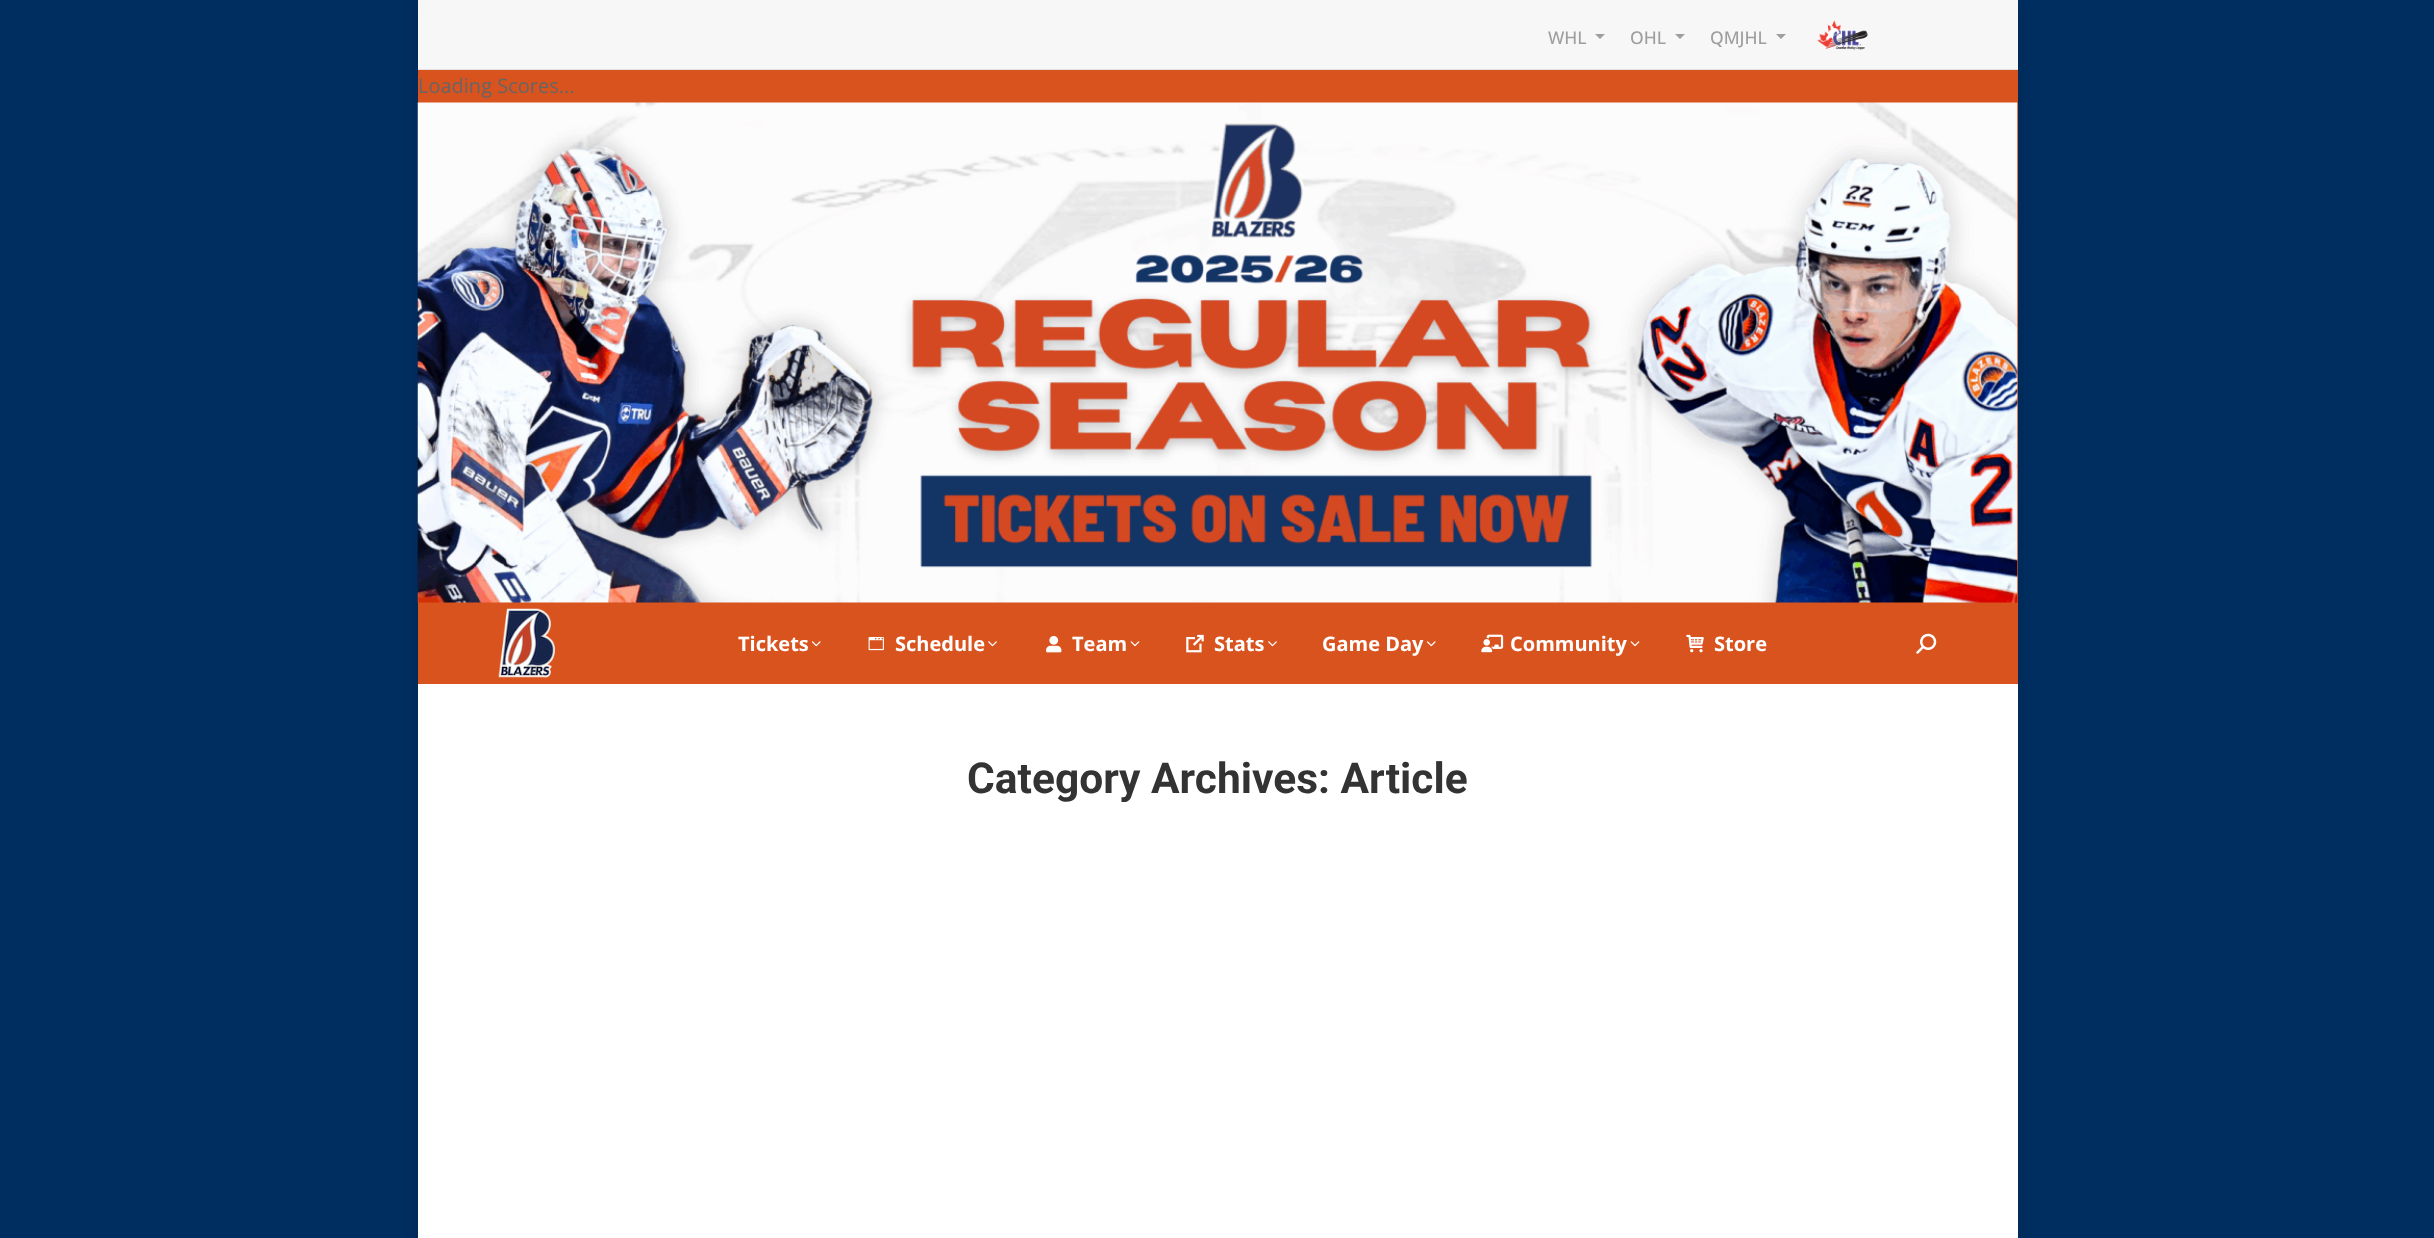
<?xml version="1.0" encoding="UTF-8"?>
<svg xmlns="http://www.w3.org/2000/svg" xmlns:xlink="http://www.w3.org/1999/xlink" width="2434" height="1238">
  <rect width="100%" height="100%" fill="#002e61" />
  <rect x="418" width="1600" height="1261" fill="#000000" fill-opacity="0.15" filter="blur(7.5px)" />
  <rect x="418" y="684" width="1600" height="554" fill="#ffffff" />
  <rect x="418" y="70" width="1600" height="614" fill="#d9531e" />
  <rect x="418" width="1600" height="69" fill="#f7f7f7" />
  <path d="M 1595 34 h 10 l -5 5 z" fill="#9e9e9e" />
  <path d="M 1675 34 h 10 l -5 5 z" fill="#9e9e9e" />
  <path d="M 1776 34 h 10 l -5 5 z" fill="#9e9e9e" />
  <image x="1817" y="20" width="51" height="31" xlink:href="image1.png" />
  <rect x="418" y="69" width="1600" height="1" fill="#e1e1e1" />
  <image x="417" y="102" width="1601" height="501" xlink:href="image2.png" />
  <image x="498" y="608" width="57" height="70" xlink:href="image3.png" />
  <image x="811" y="641" width="10" height="6" xlink:href="image4.png" />
  <image x="868" y="637" width="16" height="14" xlink:href="image5.png" />
  <image x="988" y="641" width="9" height="6" xlink:href="image6.png" />
  <image x="1046" y="635" width="16" height="18" xlink:href="image7.png" />
  <image x="1130" y="641" width="10" height="6" xlink:href="image8.png" />
  <image x="1186" y="634" width="18" height="19" xlink:href="image9.png" />
  <image x="1268" y="641" width="9" height="6" xlink:href="image6.png" />
  <image x="1426" y="641" width="10" height="6" xlink:href="image4.png" />
  <image x="1481" y="634" width="23" height="19" xlink:href="image10.png" />
  <image x="1630" y="641" width="10" height="6" xlink:href="image8.png" />
  <image x="1686" y="634" width="18" height="19" xlink:href="image11.png" />
  <image x="1916" y="633" width="21" height="21" xlink:href="image12.png" />
  <text x="1548" y="44" style="font-family: Open Sans; font-size: 17.5px; font-weight: 500; fill: #9e9e9e">WHL</text>
  <text x="1630" y="44" style="font-family: Open Sans; font-size: 17.5px; font-weight: 500; fill: #9e9e9e">OHL</text>
  <text x="1710" y="44" style="font-family: Open Sans; font-size: 17.5px; font-weight: 500; fill: #9e9e9e">QMJHL</text>
  <text x="418" y="93" style="font-family: Open Sans; font-size: 20px; fill: #666666">Loading Scores...</text>
  <text x="738" y="651" style="font-family: Open Sans; font-size: 20px; font-weight: bold; fill: #ffffff">Tickets</text>
  <text x="895" y="651" style="font-family: Open Sans; font-size: 20px; font-weight: bold; fill: #ffffff">Schedule</text>
  <text x="1072" y="651" style="font-family: Open Sans; font-size: 20px; font-weight: bold; fill: #ffffff">Team</text>
  <text x="1214" y="651" style="font-family: Open Sans; font-size: 20px; font-weight: bold; fill: #ffffff">Stats</text>
  <text x="1322" y="651" style="font-family: Open Sans; font-size: 20px; font-weight: bold; fill: #ffffff">Game Day</text>
  <text x="1510" y="651" style="font-family: Open Sans; font-size: 20px; font-weight: bold; fill: #ffffff">Community</text>
  <text x="1714" y="651" style="font-family: Open Sans; font-size: 20px; font-weight: bold; fill: #ffffff">Store</text>
  <text x="967" y="793" style="font-family: Roboto; font-size: 42.5px; font-weight: bold; fill: #333333">Category Archives: Article</text>
</svg>
